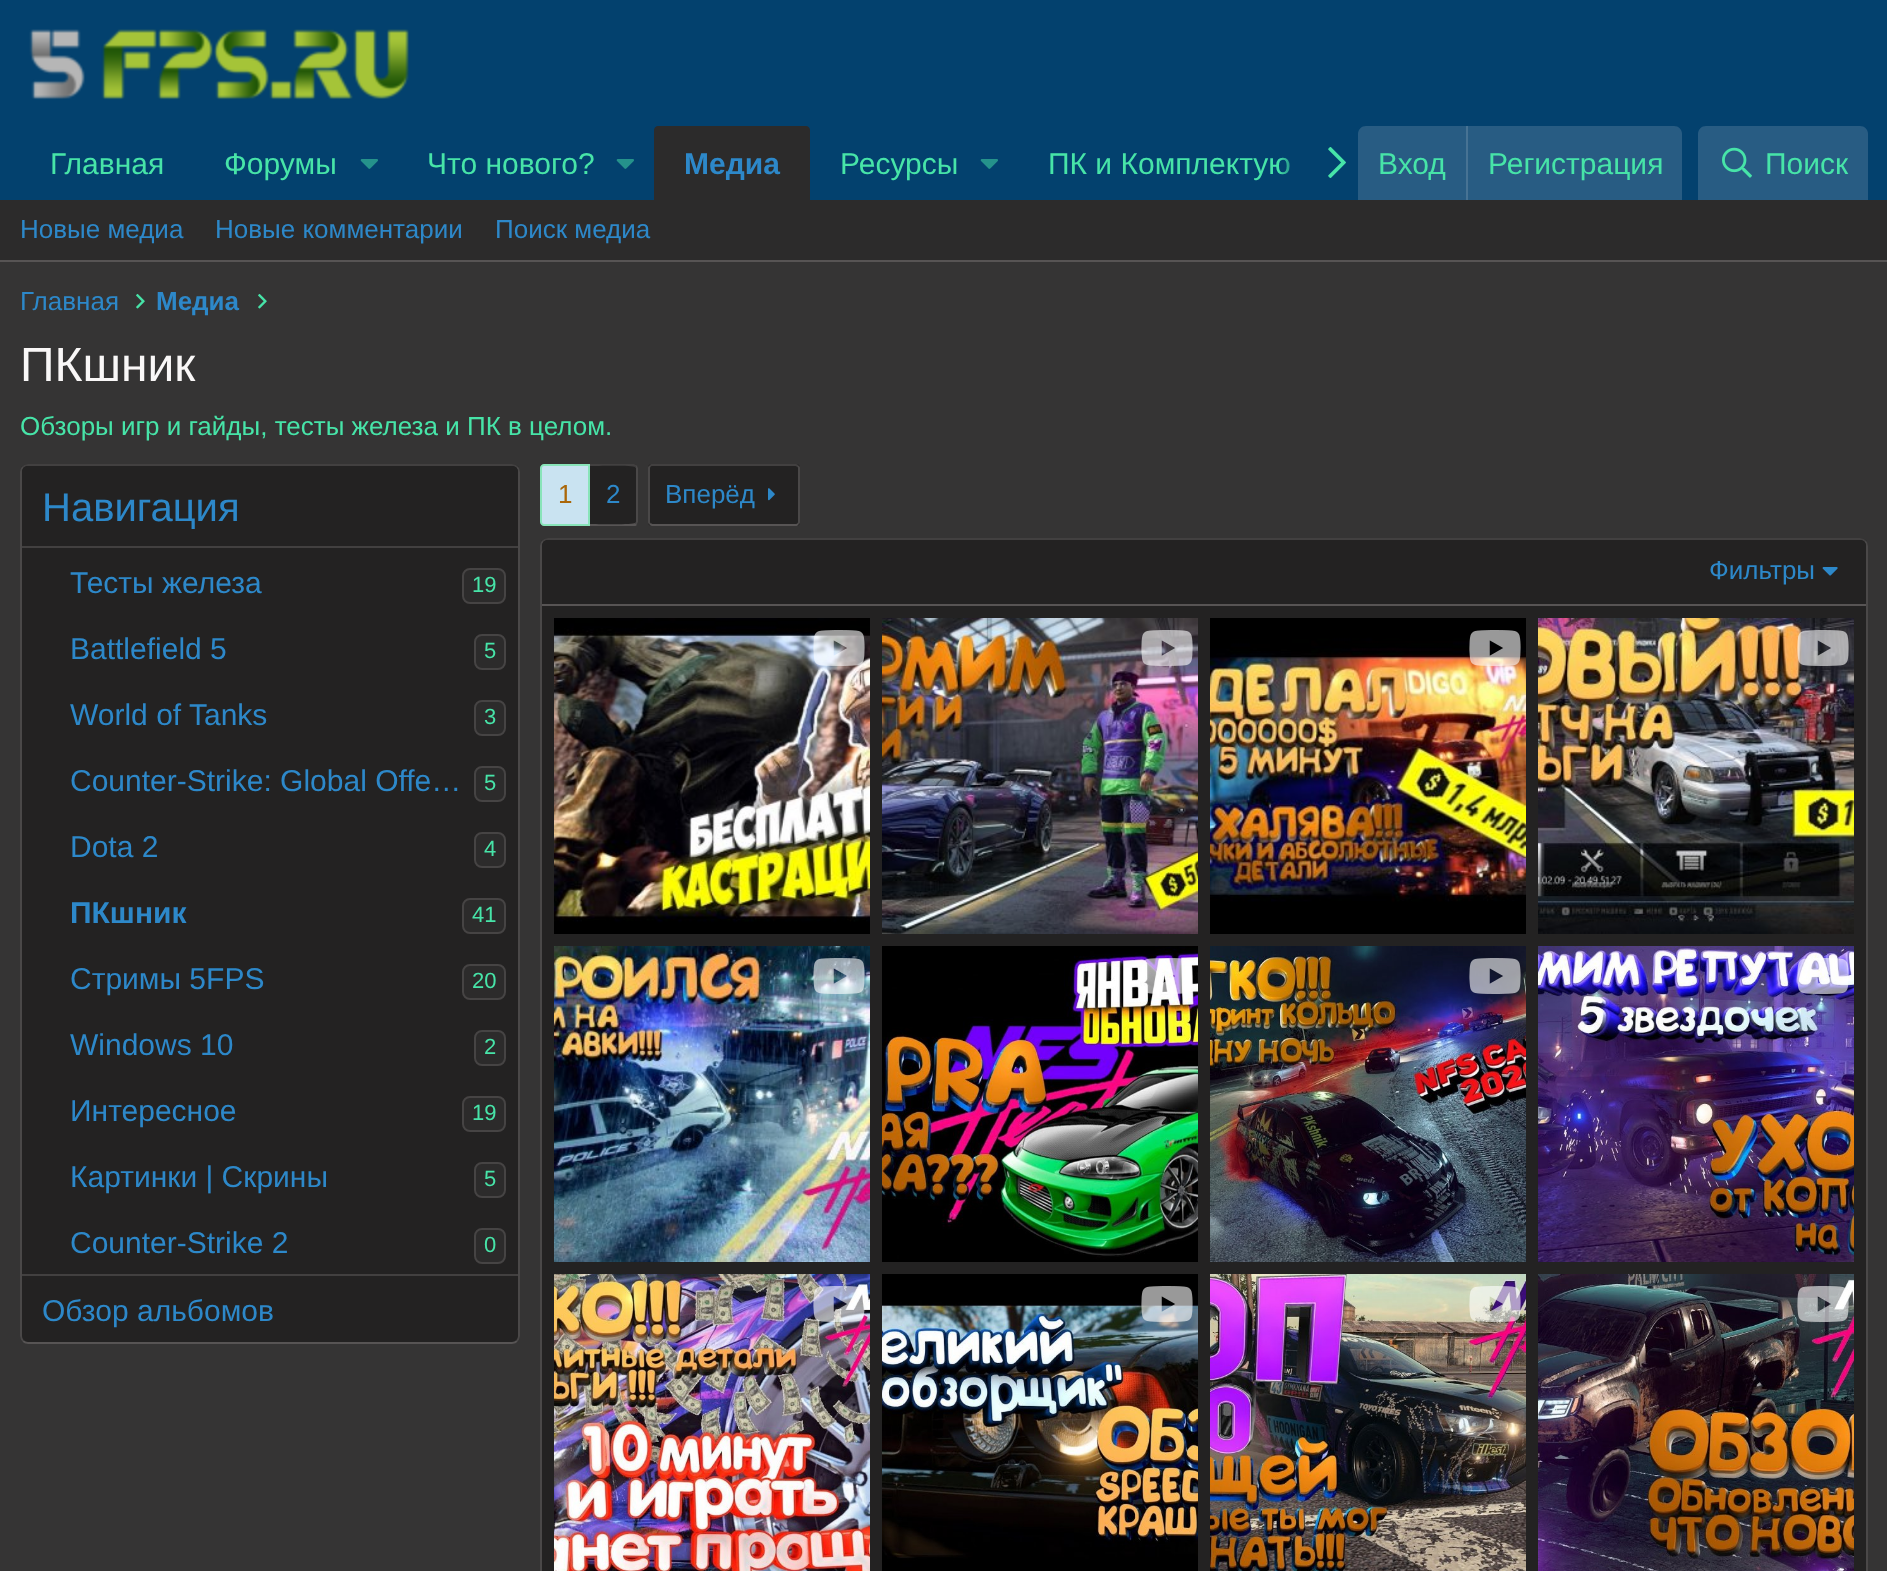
<?xml version="1.0" encoding="UTF-8"?>
<svg xmlns="http://www.w3.org/2000/svg" xmlns:xlink="http://www.w3.org/1999/xlink" width="1887" height="1571">
  <defs>
    <linearGradient id="g1" gradientUnits="userSpaceOnUse" x1="1278" y1="163" x2="1358" y2="163"><stop offset="0" stop-color="#03416e" stop-opacity="0" /><stop offset="0.33" stop-color="#03416e" /></linearGradient>
  </defs>
  <rect width="100%" height="100%" fill="#353434" />
  <rect width="1887" height="200" fill="#03416e" />
  <image x="29" y="29" width="380" height="71" xlink:href="image1.png" />
  <image x="360" y="159" width="18" height="10" xlink:href="image2.png" />
  <image x="616" y="159" width="18" height="10" xlink:href="image2.png" />
  <path d="M 658 126 h 148 c 2 0 4 2 4 4 v 70 h -156 v -70 c 0 -2 2 -4 4 -4 z" fill="#2c2b2b" />
  <image x="980" y="159" width="18" height="10" xlink:href="image2.png" />
  <image x="1328" y="147" width="18" height="31" xlink:href="image3.png" />
  <path d="M 1366 126 h 308 c 4.5 0 8 3.5 8 8 v 66 h -324 v -66 c 0 -4.5 3.5 -8 8 -8 z" fill="#285c83" />
  <rect x="1466" y="126" width="2" height="74" fill="#477394" />
  <path d="M 1706 126 h 154 c 4.5 0 8 3.5 8 8 v 66 h -170 v -66 c 0 -4.5 3.5 -8 8 -8 z" fill="#285c83" />
  <image x="1722" y="147" width="30" height="31" xlink:href="image4.png" />
  <rect y="200" width="1887" height="60" fill="#2c2b2b" />
  <rect y="260" width="1887" height="2" fill="#575454" />
  <image x="136" y="293" width="9" height="16" xlink:href="image5.png" />
  <image x="258" y="293" width="9" height="16" xlink:href="image5.png" />
  <rect x="20" y="464" width="500" height="880" rx="8" fill="#232222" />
  <path d="M 23 467 c 1.5 -1.5 3 -2 5 -2 h 484 c 2 0 3.5 0.5 5 2" fill="none" stroke="#424040" stroke-width="2" />
  <path d="M 517 467 c 1.5 1.5 2 3 2 5 v 864 c 0 2 -0.5 3.5 -2 5" fill="none" stroke="#4a4848" stroke-width="2" />
  <path d="M 517 1341 c -1.5 1.5 -3 2 -5 2 h -484 c -2 0 -3.5 -0.5 -5 -2" fill="none" stroke="#575454" stroke-width="2" />
  <path d="M 23 1341 c -1.5 -1.5 -2 -3 -2 -5 v -864 c 0 -2 0.5 -3.5 2 -5" fill="none" stroke="#4a4848" stroke-width="2" />
  <path d="M 28 466 h 484 c 3.5 0 6 2.5 6 6 v 76 h -496 v -76 c 0 -3.5 2.5 -6 6 -6 z" fill="#232222" />
  <rect x="22" y="546" width="496" height="2" fill="#424040" />
  <rect x="463" y="569" width="42" height="34" rx="7" fill="#2c2b2b" stroke="#464444" stroke-width="2" />
  <rect x="475" y="635" width="30" height="34" rx="7" fill="#2c2b2b" stroke="#464444" stroke-width="2" />
  <rect x="475" y="701" width="30" height="34" rx="7" fill="#2c2b2b" stroke="#464444" stroke-width="2" />
  <rect x="475" y="767" width="30" height="34" rx="7" fill="#2c2b2b" stroke="#464444" stroke-width="2" />
  <rect x="475" y="833" width="30" height="34" rx="7" fill="#2c2b2b" stroke="#464444" stroke-width="2" />
  <rect x="463" y="899" width="42" height="34" rx="7" fill="#2c2b2b" stroke="#464444" stroke-width="2" />
  <rect x="463" y="965" width="42" height="34" rx="7" fill="#2c2b2b" stroke="#464444" stroke-width="2" />
  <rect x="475" y="1031" width="30" height="34" rx="7" fill="#2c2b2b" stroke="#464444" stroke-width="2" />
  <rect x="463" y="1097" width="42" height="34" rx="7" fill="#2c2b2b" stroke="#464444" stroke-width="2" />
  <rect x="475" y="1163" width="30" height="34" rx="7" fill="#2c2b2b" stroke="#464444" stroke-width="2" />
  <rect x="475" y="1229" width="30" height="34" rx="7" fill="#2c2b2b" stroke="#464444" stroke-width="2" />
  <rect x="22" y="1274" width="496" height="2" fill="#424040" />
  <path d="M 544 465 h 45 v 60 h -45 c -1.5 0 -3 -1.5 -3 -3 v -54 c 0 -1.5 1.5 -3 3 -3 z" fill="#c9e3f1" stroke="#88e4b9" stroke-width="2" />
  <path d="M 590 464 h 44 c 2 0 4 2 4 4 v 54 c 0 2 -2 4 -4 4 h -44 z" fill="#232222" />
  <path d="M 590 464 v 2 c 5 0 44 -1 45 1 l 2 -2 l -3 -1 z" fill="#424040" />
  <path d="M 635 523 l 1 -1 v -54 l -1 -1 l 2 -2 l 1 3 v 54 l -1 3 z" fill="#4a4848" />
  <path d="M 590 524 v 2 h 44 c 1 0 2 0 3 -1 l -2 -2 c -1 2 -40 1 -45 1 z" fill="#575454" />
  <rect x="648" y="464" width="152" height="62" rx="4" fill="#232222" />
  <path d="M 650 466 l 1.5 -1 h 120.5 h 24 l 2 1" fill="none" stroke="#424040" stroke-width="2" />
  <path d="M 798 466 l 1 1.5 v 55 l -1 1.5" fill="none" stroke="#4a4848" stroke-width="2" />
  <path d="M 798 524 l -1.5 1 h -120.5 h -24 l -2 -1" fill="none" stroke="#575454" stroke-width="2" />
  <path d="M 650 524 l -1 -1.5 v -55 l 1 -1.5" fill="none" stroke="#4a4848" stroke-width="2" />
  <image x="768" y="488" width="7" height="13" xlink:href="image6.png" />
  <rect x="540" y="538" width="1328" height="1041" rx="8" fill="#232222" />
  <path d="M 543 541 c 1.5 -1.5 3 -2 5 -2 h 1312 c 2 0 3.5 0.5 5 2" fill="none" stroke="#424040" stroke-width="2" />
  <path d="M 1865 541 c 1.5 1.5 2 3 2 5 v 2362 c 0 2 -0.5 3.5 -2 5" fill="none" stroke="#4a4848" stroke-width="2" />
  <path d="M 543 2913 c -1.5 -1.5 -2 -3 -2 -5 v -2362 c 0 -2 0.5 -3.5 2 -5" fill="none" stroke="#4a4848" stroke-width="2" />
  <path d="M 548 540 h 1312 c 3.5 0 6 2.5 6 6 v 60 h -1324 v -60 c 0 -3.5 2.5 -6 6 -6 z" fill="#232222" />
  <rect x="542" y="604" width="1324" height="2" fill="#575454" />
  <image x="1822" y="567" width="16" height="9" xlink:href="image7.png" />
  <image x="554" y="618" width="316" height="316" xlink:href="image8.png" />
  <image x="813" y="630" width="52" height="36" xlink:href="image9.png" />
  <image x="882" y="618" width="316" height="316" xlink:href="image10.png" />
  <image x="1141" y="630" width="52" height="36" xlink:href="image11.png" />
  <image x="1210" y="618" width="316" height="316" xlink:href="image12.png" />
  <image x="1469" y="630" width="52" height="36" xlink:href="image13.png" />
  <image x="1538" y="618" width="316" height="316" xlink:href="image14.png" />
  <image x="1797" y="630" width="52" height="36" xlink:href="image15.png" />
  <image x="554" y="946" width="316" height="316" xlink:href="image16.png" />
  <image x="813" y="958" width="52" height="36" xlink:href="image17.png" />
  <image x="882" y="946" width="316" height="316" xlink:href="image18.png" />
  <image x="1142" y="958" width="51" height="36" xlink:href="image19.png" />
  <image x="1210" y="946" width="316" height="316" xlink:href="image20.png" />
  <image x="1469" y="958" width="52" height="36" xlink:href="image21.png" />
  <image x="1538" y="946" width="316" height="316" xlink:href="image22.png" />
  <image x="1797" y="958" width="52" height="36" xlink:href="image23.png" />
  <image x="554" y="1274" width="316" height="297" xlink:href="image24.png" />
  <image x="813" y="1286" width="52" height="36" xlink:href="image25.png" />
  <image x="882" y="1274" width="316" height="297" xlink:href="image26.png" />
  <image x="1141" y="1286" width="52" height="36" xlink:href="image27.png" />
  <image x="1210" y="1274" width="316" height="297" xlink:href="image28.png" />
  <image x="1469" y="1286" width="52" height="36" xlink:href="image29.png" />
  <image x="1538" y="1274" width="316" height="297" xlink:href="image30.png" />
  <image x="1797" y="1286" width="52" height="36" xlink:href="image31.png" />
  <text x="50" y="174" style="font-family: Liberation Sans; font-size: 30px; fill: #47e4a8">Главная</text>
  <text x="224" y="174" style="font-family: Liberation Sans; font-size: 30px; fill: #47e4a8">Форумы</text>
  <text x="427" y="174" style="font-family: Liberation Sans; font-size: 30px; fill: #47e4a8">Что нового?</text>
  <text x="684" y="174" style="font-family: Liberation Sans; font-size: 30px; font-weight: bold; fill: #2d88c9">Медиа</text>
  <text x="840" y="174" style="font-family: Liberation Sans; font-size: 30px; fill: #47e4a8">Ресурсы</text>
  <text x="1048" y="174" style="font-family: Liberation Sans; font-size: 30px; fill: #47e4a8">ПК и Комплектую</text>
  <rect x="1279" y="157" width="11" height="18" fill="url(#g1)" />
  <text x="1378" y="174" style="font-family: Liberation Sans; font-size: 30px; fill: #47e4a8">Вход</text>
  <text x="1488" y="174" style="font-family: Liberation Sans; font-size: 30px; fill: #47e4a8">Регистрация</text>
  <text x="1765" y="174" style="font-family: Liberation Sans; font-size: 30px; fill: #47e4a8">Поиск</text>
  <text x="20" y="238" style="font-family: Liberation Sans; font-size: 26px; fill: #2d88c9">Новые медиа</text>
  <text x="215" y="238" style="font-family: Liberation Sans; font-size: 26px; fill: #2d88c9">Новые комментарии</text>
  <text x="495" y="238" style="font-family: Liberation Sans; font-size: 26px; fill: #2d88c9">Поиск медиа</text>
  <text x="20" y="310" style="font-family: Liberation Sans; font-size: 26px; fill: #2d88c9">Главная</text>
  <text x="156" y="310" style="font-family: Liberation Sans; font-size: 26px; font-weight: bold; fill: #2d88c9">Медиа</text>
  <text x="20" y="381" style="font-family: Liberation Sans; font-size: 48px; fill: #f9f7f7">ПКшник</text>
  <text x="20" y="435" style="font-family: Liberation Sans; font-size: 26px; fill: #47e4a8">Обзоры игр и гайды, тесты железа и ПК в целом.</text>
  <text x="42" y="521" style="font-family: Liberation Sans; font-size: 40px; fill: #2d88c9">Навигация</text>
  <text x="70" y="593" style="font-family: Liberation Sans; font-size: 30px; fill: #2d88c9">Тесты железа</text>
  <text x="472" y="592" style="font-family: Liberation Sans; font-size: 22px; fill: #47e4a8">19</text>
  <text x="70" y="659" style="font-family: Liberation Sans; font-size: 30px; fill: #2d88c9">Battlefield 5</text>
  <text x="484" y="658" style="font-family: Liberation Sans; font-size: 22px; fill: #47e4a8">5</text>
  <text x="70" y="725" style="font-family: Liberation Sans; font-size: 30px; fill: #2d88c9">World of Tanks</text>
  <text x="484" y="724" style="font-family: Liberation Sans; font-size: 22px; fill: #47e4a8">3</text>
  <text x="70" y="791" style="font-family: Liberation Sans; font-size: 30px; fill: #2d88c9">Counter-Strike: Global Offe…</text>
  <text x="484" y="790" style="font-family: Liberation Sans; font-size: 22px; fill: #47e4a8">5</text>
  <text x="70" y="857" style="font-family: Liberation Sans; font-size: 30px; fill: #2d88c9">Dota 2</text>
  <text x="484" y="856" style="font-family: Liberation Sans; font-size: 22px; fill: #47e4a8">4</text>
  <text x="70" y="923" style="font-family: Liberation Sans; font-size: 30px; font-weight: bold; fill: #2d88c9">ПКшник</text>
  <text x="472" y="922" style="font-family: Liberation Sans; font-size: 22px; fill: #47e4a8">41</text>
  <text x="70" y="989" style="font-family: Liberation Sans; font-size: 30px; fill: #2d88c9">Стримы 5FPS</text>
  <text x="472" y="988" style="font-family: Liberation Sans; font-size: 22px; fill: #47e4a8">20</text>
  <text x="70" y="1055" style="font-family: Liberation Sans; font-size: 30px; fill: #2d88c9">Windows 10</text>
  <text x="484" y="1054" style="font-family: Liberation Sans; font-size: 22px; fill: #47e4a8">2</text>
  <text x="70" y="1121" style="font-family: Liberation Sans; font-size: 30px; fill: #2d88c9">Интересное</text>
  <text x="472" y="1120" style="font-family: Liberation Sans; font-size: 22px; fill: #47e4a8">19</text>
  <text x="70" y="1187" style="font-family: Liberation Sans; font-size: 30px; fill: #2d88c9">Картинки | Скрины</text>
  <text x="484" y="1186" style="font-family: Liberation Sans; font-size: 22px; fill: #47e4a8">5</text>
  <text x="70" y="1253" style="font-family: Liberation Sans; font-size: 30px; fill: #2d88c9">Counter-Strike 2</text>
  <text x="484" y="1252" style="font-family: Liberation Sans; font-size: 22px; fill: #47e4a8">0</text>
  <text x="42" y="1321" style="font-family: Liberation Sans; font-size: 30px; fill: #2d88c9">Обзор альбомов</text>
  <text x="558" y="503" style="font-family: Liberation Sans; font-size: 26px; fill: #aa6709">1</text>
  <text x="606" y="503" style="font-family: Liberation Sans; font-size: 26px; fill: #2d88c9">2</text>
  <text x="665" y="503" style="font-family: Liberation Sans; font-size: 26px; fill: #2d88c9">Вперёд</text>
  <text x="1709" y="579" style="font-family: Liberation Sans; font-size: 26px; fill: #2d88c9">Фильтры</text>
</svg>
